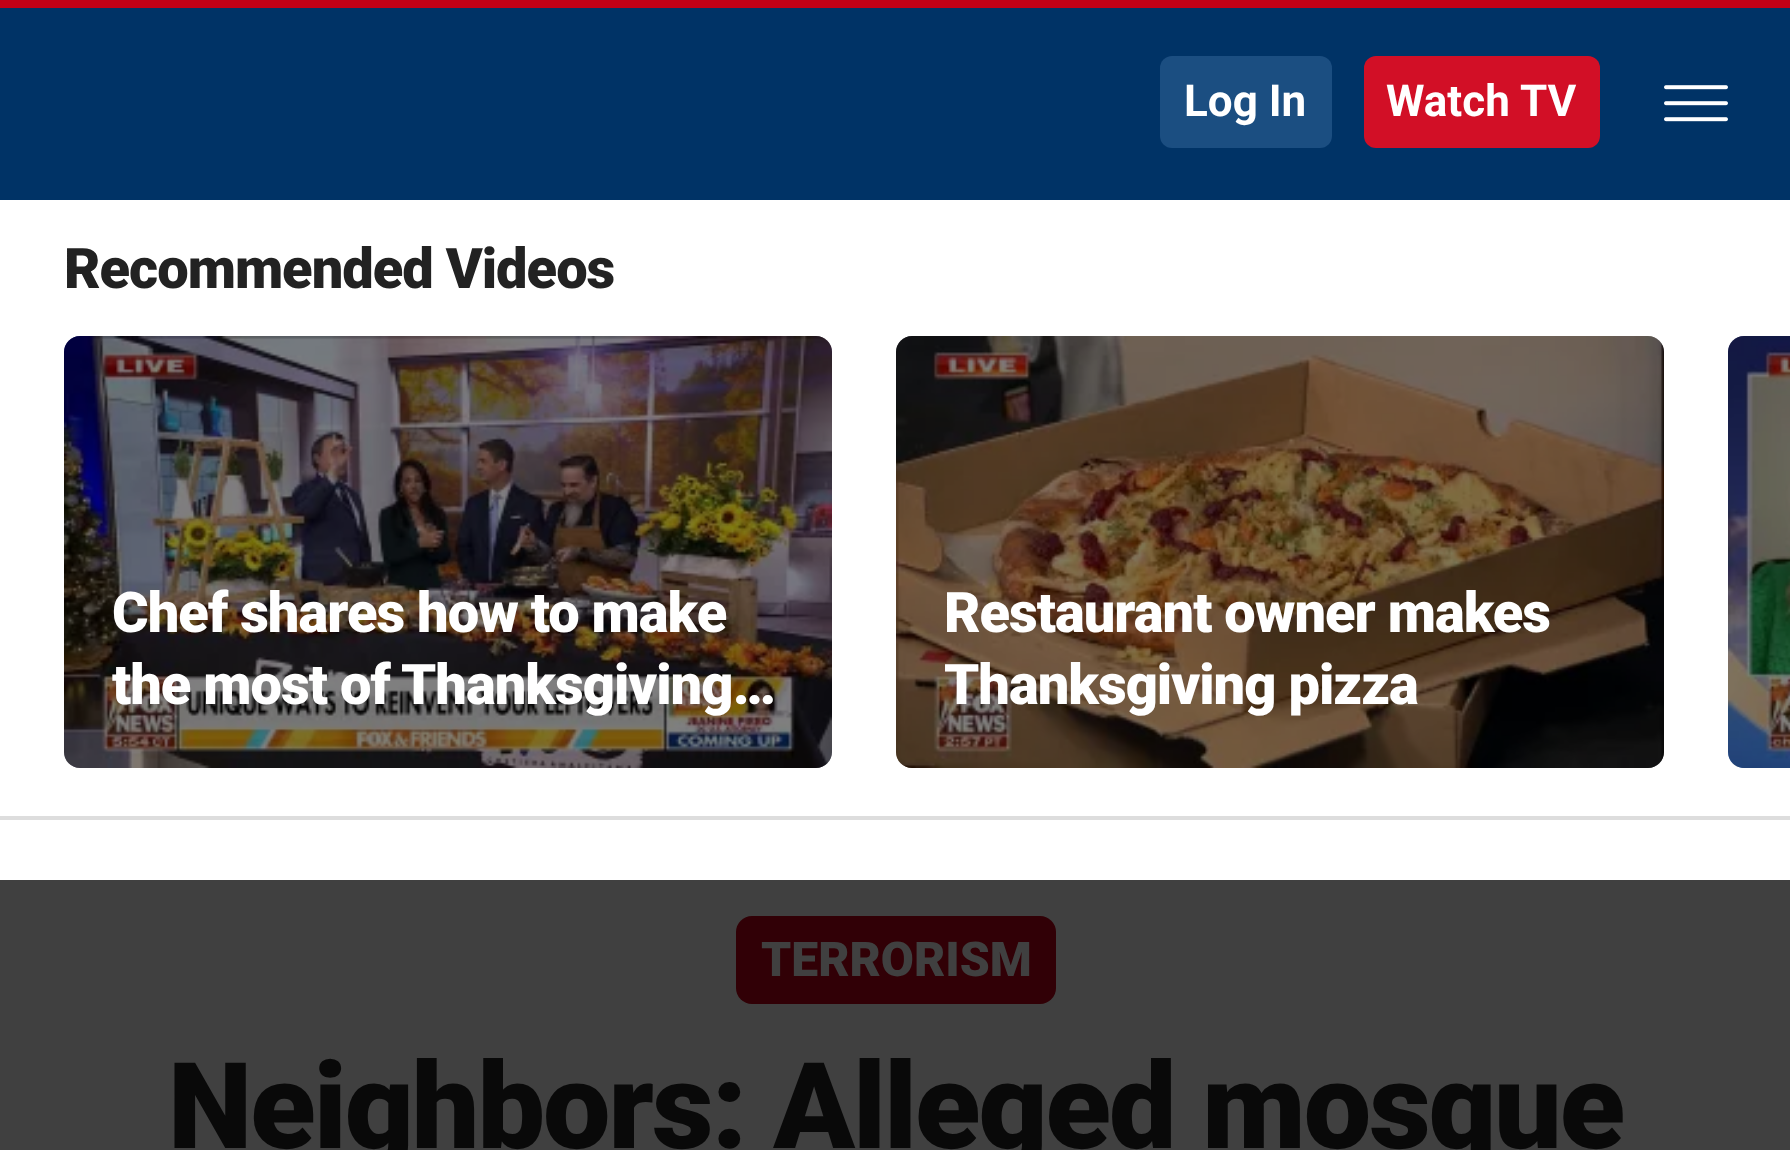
<?xml version="1.0" encoding="UTF-8"?>
<svg xmlns="http://www.w3.org/2000/svg" xmlns:xlink="http://www.w3.org/1999/xlink" width="1790" height="1150">
  <rect width="100%" height="100%" fill="#ffffff" />
  <rect y="880" width="1790" height="270" fill="#404040" />
  <rect y="8" width="1790" height="192" fill="#003366" />
  <rect width="1790" height="8" fill="#c20017" />
  <rect x="1160" y="56" width="172" height="92" rx="12" fill="#1b4e81" />
  <rect x="1364" y="56" width="236" height="92" rx="12" fill="#d20f26" />
  <image x="1664" y="85" width="64" height="37" xlink:href="image1.png" />
  <rect y="816" width="1790" height="4" fill="#dddddd" />
  <rect x="64" y="336" width="768" height="432" rx="16" fill="#f4f4f4" />
  <image x="64" y="336" width="768" height="432" xlink:href="image2.png" />
  <rect x="64" y="336" width="768" height="432" rx="16" fill="#000000" fill-opacity="0.5" />
  <rect x="896" y="336" width="768" height="432" rx="16" fill="#f4f4f4" />
  <image x="896" y="336" width="768" height="432" xlink:href="image3.png" />
  <rect x="896" y="336" width="768" height="432" rx="16" fill="#000000" fill-opacity="0.5" />
  <path d="M 1744 336 h 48 v 432 h -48 c -9 0 -16 -7 -16 -16 v -400 c 0 -9 7 -16 16 -16 z" fill="#f4f4f4" />
  <image x="1728" y="336" width="62" height="432" xlink:href="image4.png" />
  <path d="M 1744 336 h 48 v 432 h -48 c -9 0 -16 -7 -16 -16 v -400 c 0 -9 7 -16 16 -16 z" fill="#000000" fill-opacity="0.5" />
  <rect x="736" y="916" width="320" height="88" rx="16" fill="#310006" />
  <text x="1184" y="116" style="font-family: Roboto; font-size: 44px; font-weight: bold; fill: #ffffff">Log In</text>
  <text x="1386" y="116" style="font-family: Roboto; font-size: 44px; font-weight: bold; fill: #ffffff">Watch</text>
  <text x="1520" y="116" style="font-family: Roboto; font-size: 44px; font-weight: bold; fill: #ffffff">TV</text>
  <text x="64" y="288" style="font-family: Roboto; font-size: 56px; font-weight: 900; letter-spacing: -1px; fill: #222222">Recommended Videos</text>
  <text x="112" y="632" style="font-family: Roboto; font-size: 56px; font-weight: 900; letter-spacing: -1px; fill: #ffffff">Chef shares how to make</text>
  <text x="112" y="704" style="font-family: Roboto; font-size: 56px; font-weight: 900; letter-spacing: -1px; fill: #ffffff">the most of Thanksgiving…</text>
  <text x="944" y="632" style="font-family: Roboto; font-size: 56px; font-weight: 900; letter-spacing: -1px; fill: #ffffff">Restaurant owner makes</text>
  <text x="944" y="704" style="font-family: Roboto; font-size: 56px; font-weight: 900; letter-spacing: -1px; fill: #ffffff">Thanksgiving pizza</text>
  <text x="761" y="976" style="font-family: Roboto; font-size: 48px; font-weight: 900; fill: #404040">TERRORISM</text>
  <text x="168" y="1148" style="font-family: Roboto; font-size: 120px; font-weight: 900; letter-spacing: -2px; fill: #090909">Neighbors: Alleged mosque</text>
</svg>
